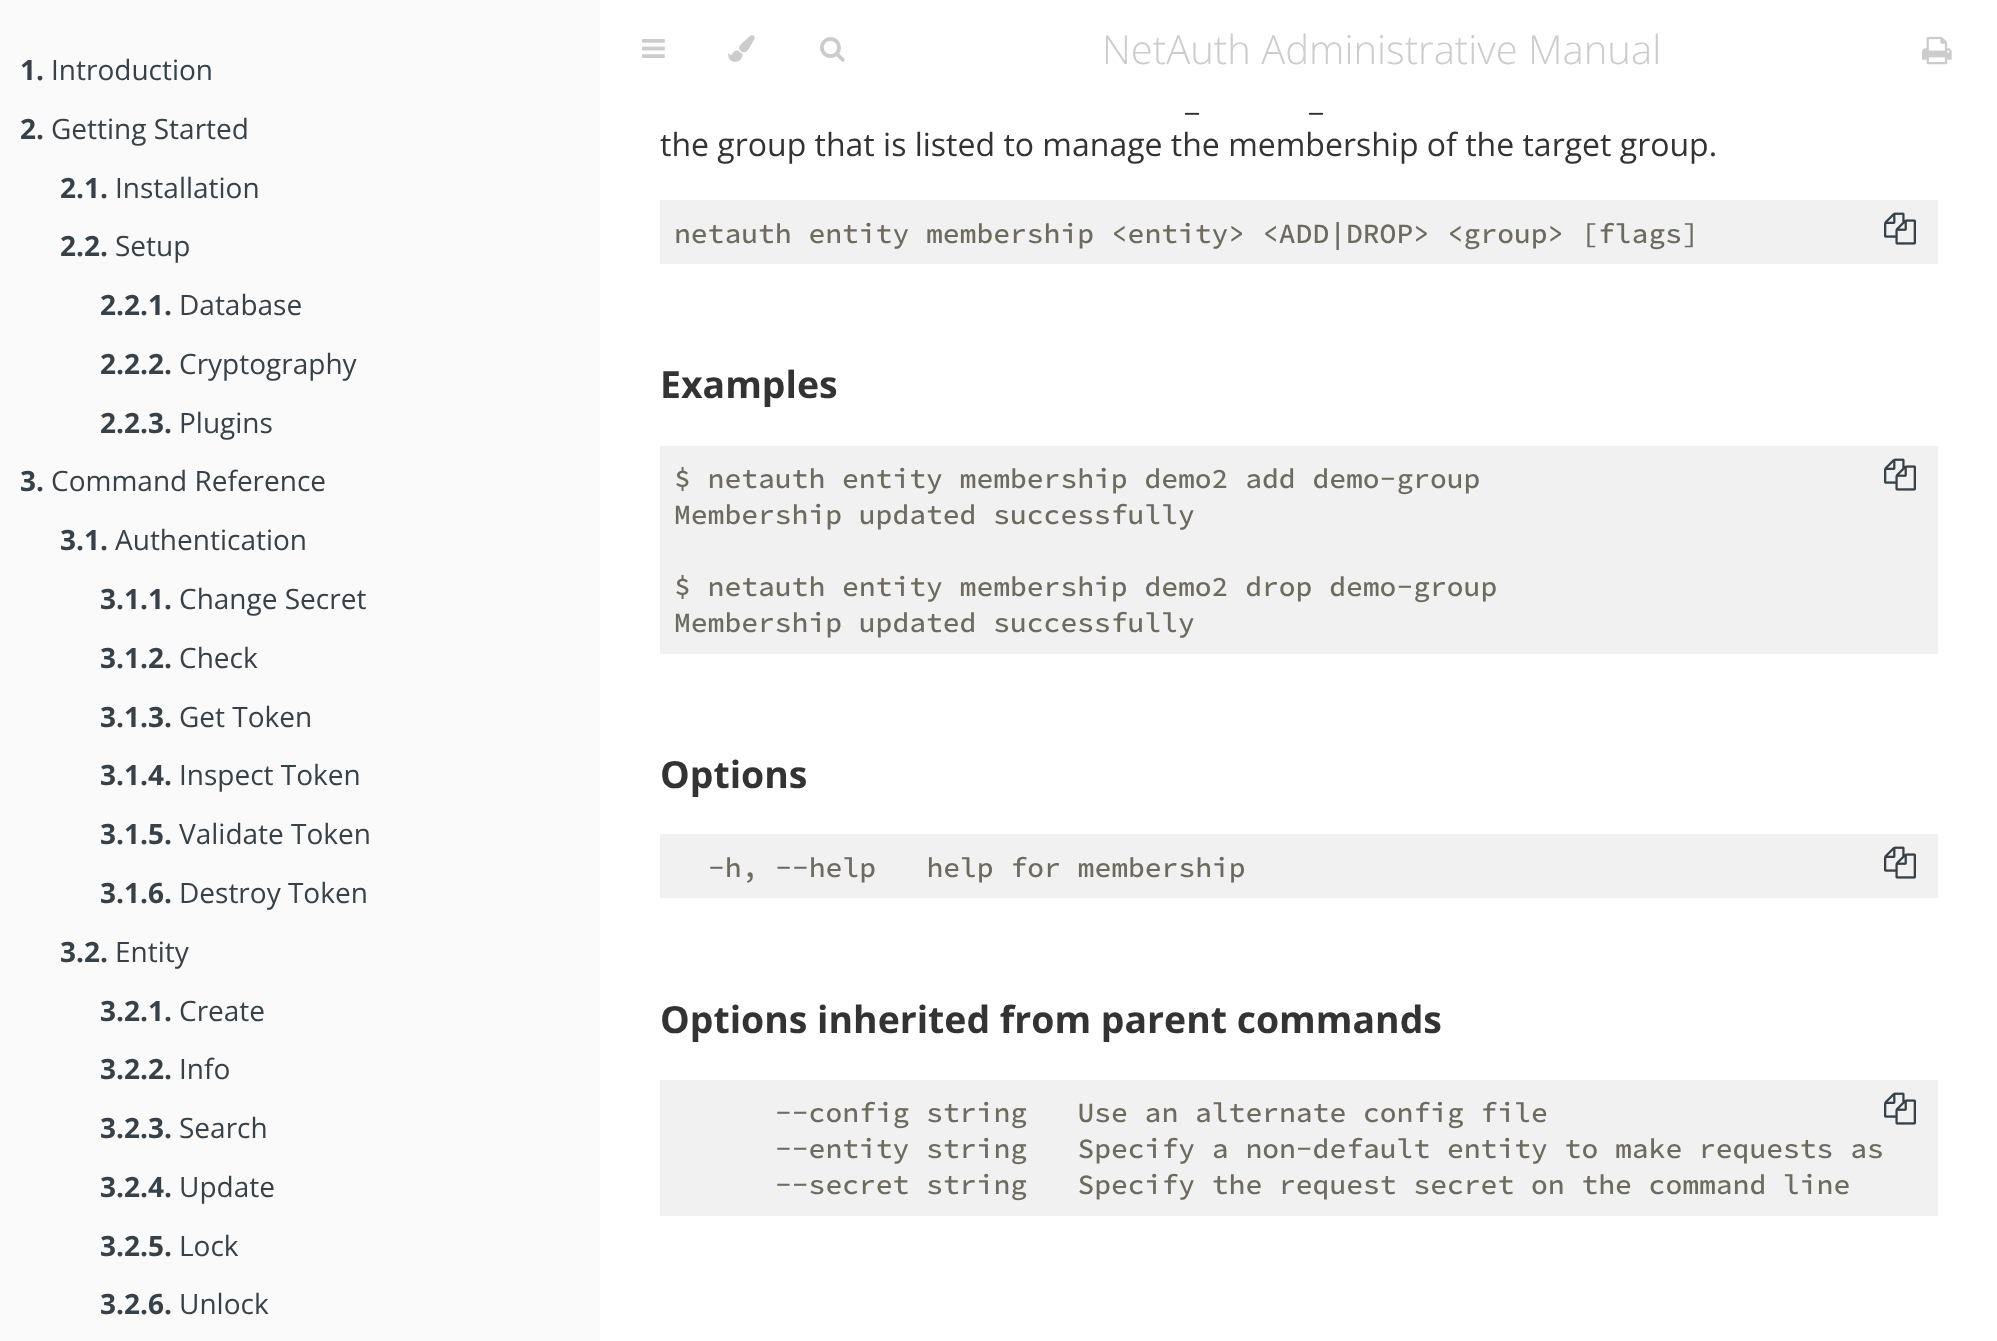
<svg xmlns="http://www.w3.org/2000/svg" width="1997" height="1341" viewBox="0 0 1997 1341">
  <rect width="100%" height="100%" fill="rgb(255,255,255)"/>
  <rect x="0" y="0" width="600" height="1341" fill="rgb(250,250,250)"/>
  <text x="20" y="80" font-family="Open Sans" font-size="28" font-weight="bold" fill="rgb(54,65,73)">1.</text>
  <text x="51" y="80" font-family="Open Sans" font-size="28" fill="rgb(54,65,73)">Introduction</text>
  <text x="20" y="139" font-family="Open Sans" font-size="28" font-weight="bold" fill="rgb(54,65,73)">2.</text>
  <text x="51" y="139" font-family="Open Sans" font-size="28" fill="rgb(54,65,73)">Getting Started</text>
  <text x="60" y="198" font-family="Open Sans" font-size="28" font-weight="bold" fill="rgb(54,65,73)">2.1.</text>
  <text x="115" y="198" font-family="Open Sans" font-size="28" fill="rgb(54,65,73)">Installation</text>
  <text x="60" y="256" font-family="Open Sans" font-size="28" font-weight="bold" fill="rgb(54,65,73)">2.2.</text>
  <text x="115" y="256" font-family="Open Sans" font-size="28" fill="rgb(54,65,73)">Setup</text>
  <text x="100" y="315" font-family="Open Sans" font-size="28" font-weight="bold" fill="rgb(54,65,73)">2.2.1.</text>
  <text x="179" y="315" font-family="Open Sans" font-size="28" fill="rgb(54,65,73)">Database</text>
  <text x="100" y="374" font-family="Open Sans" font-size="28" font-weight="bold" fill="rgb(54,65,73)">2.2.2.</text>
  <text x="179" y="374" font-family="Open Sans" font-size="28" fill="rgb(54,65,73)">Cryptography</text>
  <text x="100" y="433" font-family="Open Sans" font-size="28" font-weight="bold" fill="rgb(54,65,73)">2.2.3.</text>
  <text x="179" y="433" font-family="Open Sans" font-size="28" fill="rgb(54,65,73)">Plugins</text>
  <text x="20" y="491" font-family="Open Sans" font-size="28" font-weight="bold" fill="rgb(54,65,73)">3.</text>
  <text x="51" y="491" font-family="Open Sans" font-size="28" fill="rgb(54,65,73)">Command Reference</text>
  <text x="60" y="550" font-family="Open Sans" font-size="28" font-weight="bold" fill="rgb(54,65,73)">3.1.</text>
  <text x="115" y="550" font-family="Open Sans" font-size="28" fill="rgb(54,65,73)">Authentication</text>
  <text x="100" y="609" font-family="Open Sans" font-size="28" font-weight="bold" fill="rgb(54,65,73)">3.1.1.</text>
  <text x="179" y="609" font-family="Open Sans" font-size="28" fill="rgb(54,65,73)">Change Secret</text>
  <text x="100" y="668" font-family="Open Sans" font-size="28" font-weight="bold" fill="rgb(54,65,73)">3.1.2.</text>
  <text x="179" y="668" font-family="Open Sans" font-size="28" fill="rgb(54,65,73)">Check</text>
  <text x="100" y="727" font-family="Open Sans" font-size="28" font-weight="bold" fill="rgb(54,65,73)">3.1.3.</text>
  <text x="179" y="727" font-family="Open Sans" font-size="28" fill="rgb(54,65,73)">Get Token</text>
  <text x="100" y="785" font-family="Open Sans" font-size="28" font-weight="bold" fill="rgb(54,65,73)">3.1.4.</text>
  <text x="179" y="785" font-family="Open Sans" font-size="28" fill="rgb(54,65,73)">Inspect Token</text>
  <text x="100" y="844" font-family="Open Sans" font-size="28" font-weight="bold" fill="rgb(54,65,73)">3.1.5.</text>
  <text x="179" y="844" font-family="Open Sans" font-size="28" fill="rgb(54,65,73)">Validate Token</text>
  <text x="100" y="903" font-family="Open Sans" font-size="28" font-weight="bold" fill="rgb(54,65,73)">3.1.6.</text>
  <text x="179" y="903" font-family="Open Sans" font-size="28" fill="rgb(54,65,73)">Destroy Token</text>
  <text x="60" y="962" font-family="Open Sans" font-size="28" font-weight="bold" fill="rgb(54,65,73)">3.2.</text>
  <text x="115" y="962" font-family="Open Sans" font-size="28" fill="rgb(54,65,73)">Entity</text>
  <text x="100" y="1021" font-family="Open Sans" font-size="28" font-weight="bold" fill="rgb(54,65,73)">3.2.1.</text>
  <text x="179" y="1021" font-family="Open Sans" font-size="28" fill="rgb(54,65,73)">Create</text>
  <text x="100" y="1079" font-family="Open Sans" font-size="28" font-weight="bold" fill="rgb(54,65,73)">3.2.2.</text>
  <text x="179" y="1079" font-family="Open Sans" font-size="28" fill="rgb(54,65,73)">Info</text>
  <text x="100" y="1138" font-family="Open Sans" font-size="28" font-weight="bold" fill="rgb(54,65,73)">3.2.3.</text>
  <text x="179" y="1138" font-family="Open Sans" font-size="28" fill="rgb(54,65,73)">Search</text>
  <text x="100" y="1197" font-family="Open Sans" font-size="28" font-weight="bold" fill="rgb(54,65,73)">3.2.4.</text>
  <text x="179" y="1197" font-family="Open Sans" font-size="28" fill="rgb(54,65,73)">Update</text>
  <text x="100" y="1256" font-family="Open Sans" font-size="28" font-weight="bold" fill="rgb(54,65,73)">3.2.5.</text>
  <text x="179" y="1256" font-family="Open Sans" font-size="28" fill="rgb(54,65,73)">Lock</text>
  <text x="100" y="1314" font-family="Open Sans" font-size="28" font-weight="bold" fill="rgb(54,65,73)">3.2.6.</text>
  <text x="179" y="1314" font-family="Open Sans" font-size="28" fill="rgb(54,65,73)">Unlock</text>
  <image x="642" y="39" width="23" height="19" href="pic1.png"/>
  <image x="728" y="35" width="27" height="27" href="pic2.png"/>
  <image x="820" y="37" width="25" height="25" href="pic3.png"/>
  <text x="1102" y="64" font-family="Open Sans" font-size="40" font-weight="300" fill="rgb(204,204,204)">NetAuth Administrative Manual</text>
  <image x="1922" y="36" width="30" height="29" href="pic4.png"/>
  <g font-family="Open Sans" font-size="32" fill="rgb(51,51,51)">
    <text x="1185" y="110">_</text>
    <text x="1309" y="110">_</text>
    <text x="660" y="156">the group that is listed to manage the membership of the target group.</text>
  </g>
  <rect x="660" y="200" width="1278" height="64" fill="rgb(241,241,241)"/>
  <text x="674" y="243" font-family="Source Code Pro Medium" font-size="28" font-weight="500" fill="rgb(110,107,94)">netauth entity membership &lt;entity&gt; &lt;ADD|DROP&gt; &lt;group&gt; [flags]</text>
  <image x="1884" y="212" width="32" height="33" href="pic5.png"/>
  <text x="660" y="398" font-family="Open Sans" font-size="37.4" font-weight="bold" fill="rgb(51,51,51)">Examples</text>
  <rect x="660" y="446" width="1278" height="208" fill="rgb(241,241,241)"/>
  <g font-family="Source Code Pro Medium" font-size="28" font-weight="500" fill="rgb(110,107,94)">
    <text>
      <tspan x="674" y="488">$ netauth entity membership demo2 add demo-group</tspan>
      <tspan x="674" y="524">Membership updated successfully</tspan>
    </text>
    <text>
      <tspan x="674" y="596">$ netauth entity membership demo2 drop demo-group</tspan>
      <tspan x="674" y="632">Membership updated successfully</tspan>
    </text>
  </g>
  <image x="1884" y="458" width="32" height="33" href="pic5.png"/>
  <text x="660" y="788" font-family="Open Sans" font-size="37.4" font-weight="bold" fill="rgb(51,51,51)">Options</text>
  <rect x="660" y="834" width="1278" height="64" fill="rgb(241,241,241)"/>
  <text x="708" y="877" font-family="Source Code Pro Medium" font-size="28" font-weight="500" fill="rgb(110,107,94)" xml:space="preserve">-h, --help   help for membership</text>
  <image x="1884" y="846" width="32" height="33" href="pic5.png"/>
  <text x="660" y="1033" font-family="Open Sans" font-size="37.4" font-weight="bold" fill="rgb(51,51,51)">Options inherited from parent commands</text>
  <rect x="660" y="1080" width="1278" height="136" fill="rgb(241,241,241)"/>
  <g font-family="Source Code Pro Medium" font-size="28" font-weight="500" fill="rgb(110,107,94)">
    <text xml:space="preserve"><tspan x="775" y="1122">--config string   Use an alternate config file</tspan><tspan x="775" y="1158">--entity string   Specify a non-default entity to make requests as</tspan><tspan x="775" y="1194">--secret string   Specify the request secret on the command line</tspan></text>
  </g>
  <image x="1884" y="1092" width="32" height="33" href="pic5.png"/>
</svg>
